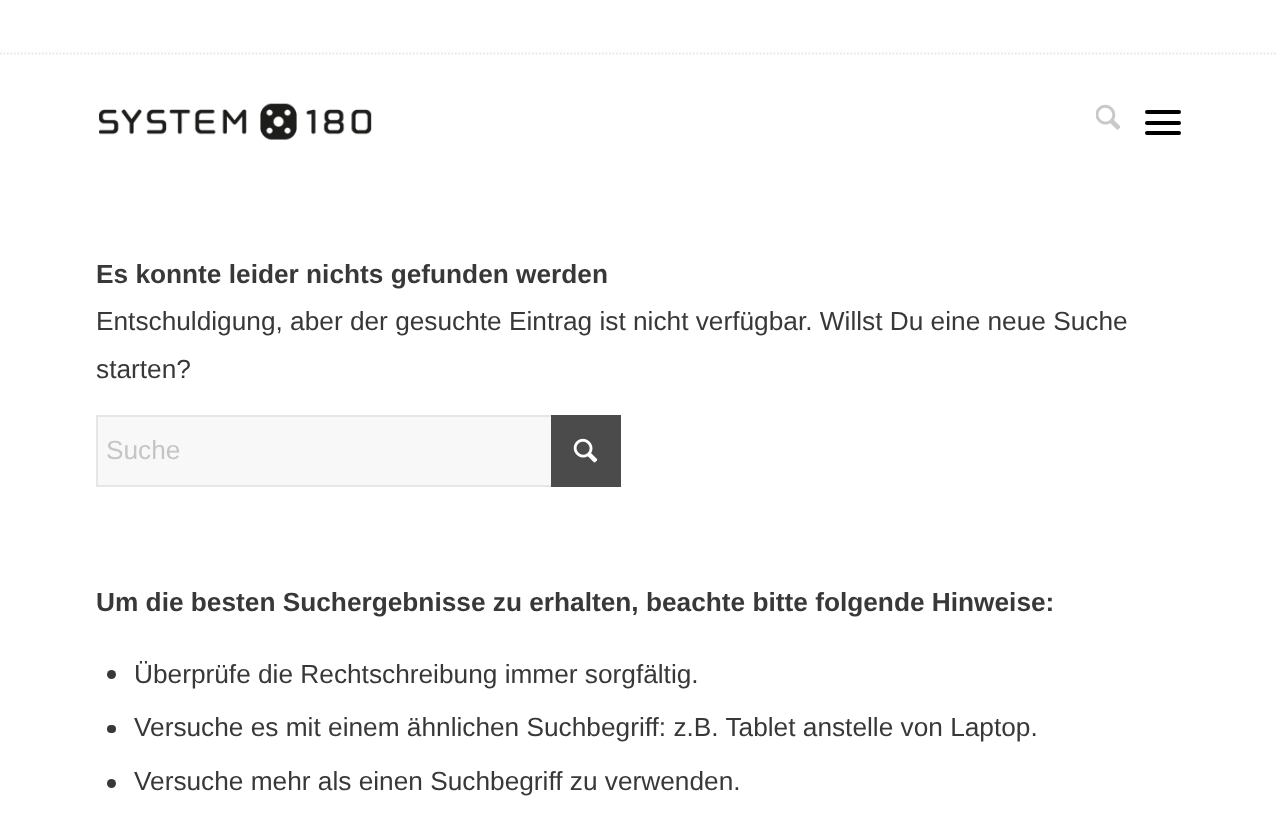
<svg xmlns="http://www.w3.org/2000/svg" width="1276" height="837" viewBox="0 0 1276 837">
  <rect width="100%" height="100%" fill="rgb(255,255,255)"/>
  <path d="M0 53.5H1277.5" fill="none" stroke="rgb(232,232,232)" stroke-width="1.8" stroke-dasharray="1.75 1.75"/>
  <image x="99" y="103" width="273" height="37" href="pic1.png"/>
  <image x="1096" y="104" width="24" height="26" href="pic2.png"/>
  <rect x="1145" y="121" width="36" height="4" rx="2" fill="rgb(0,0,0)"/>
  <rect x="1145" y="110" width="36" height="4" rx="2" fill="rgb(0,0,0)"/>
  <rect x="1145" y="131" width="36" height="4" rx="2" fill="rgb(0,0,0)"/>
  <text x="96" y="283" font-family="Liberation Sans" font-size="26.25" font-weight="bold" fill="rgb(56,56,56)">Es konnte leider nichts gefunden werden</text>
  <g font-family="Liberation Sans" font-size="26.25" fill="rgb(56,56,56)">
    <text>
      <tspan x="96" y="330">Entschuldigung, aber der gesuchte Eintrag ist nicht verfügbar. Willst Du eine neue Suche</tspan>
      <tspan x="96" y="378">starten?</tspan>
    </text>
  </g>
  <rect x="98" y="417" width="453" height="68" fill="rgb(248,248,248)"/>
  <rect x="97" y="416" width="523" height="70" fill="none" stroke="rgb(230,230,230)" stroke-width="2"/>
  <rect x="551" y="415" width="70" height="72" fill="rgb(75,75,75)"/>
  <text x="106" y="459" font-family="Liberation Sans" font-size="26.25" fill="rgb(197,197,197)">Suche</text>
  <image x="573" y="438" width="25" height="25" href="pic3.png"/>
  <text x="96" y="611" font-family="Liberation Sans" font-size="26.25" font-weight="bold" fill="rgb(56,56,56)">Um die besten Suchergebnisse zu erhalten, beachte bitte folgende Hinweise:</text>
  <circle cx="111.5" cy="674.5" r="4.5" fill="rgb(56,56,56)"/>
  <text x="134" y="683" font-family="Liberation Sans" font-size="26.25" fill="rgb(56,56,56)">Überprüfe die Rechtschreibung immer sorgfältig.</text>
  <rect x="107" y="725" width="9" height="8" rx="4" fill="rgb(56,56,56)"/>
  <text x="134" y="736" font-family="Liberation Sans" font-size="26.25" fill="rgb(56,56,56)">Versuche es mit einem ähnlichen Suchbegriff: z.B. Tablet anstelle von Laptop.</text>
  <circle cx="111.5" cy="783.5" r="4.5" fill="rgb(56,56,56)"/>
  <text x="134" y="790" font-family="Liberation Sans" font-size="26.25" fill="rgb(56,56,56)">Versuche mehr als einen Suchbegriff zu verwenden.</text>
</svg>
